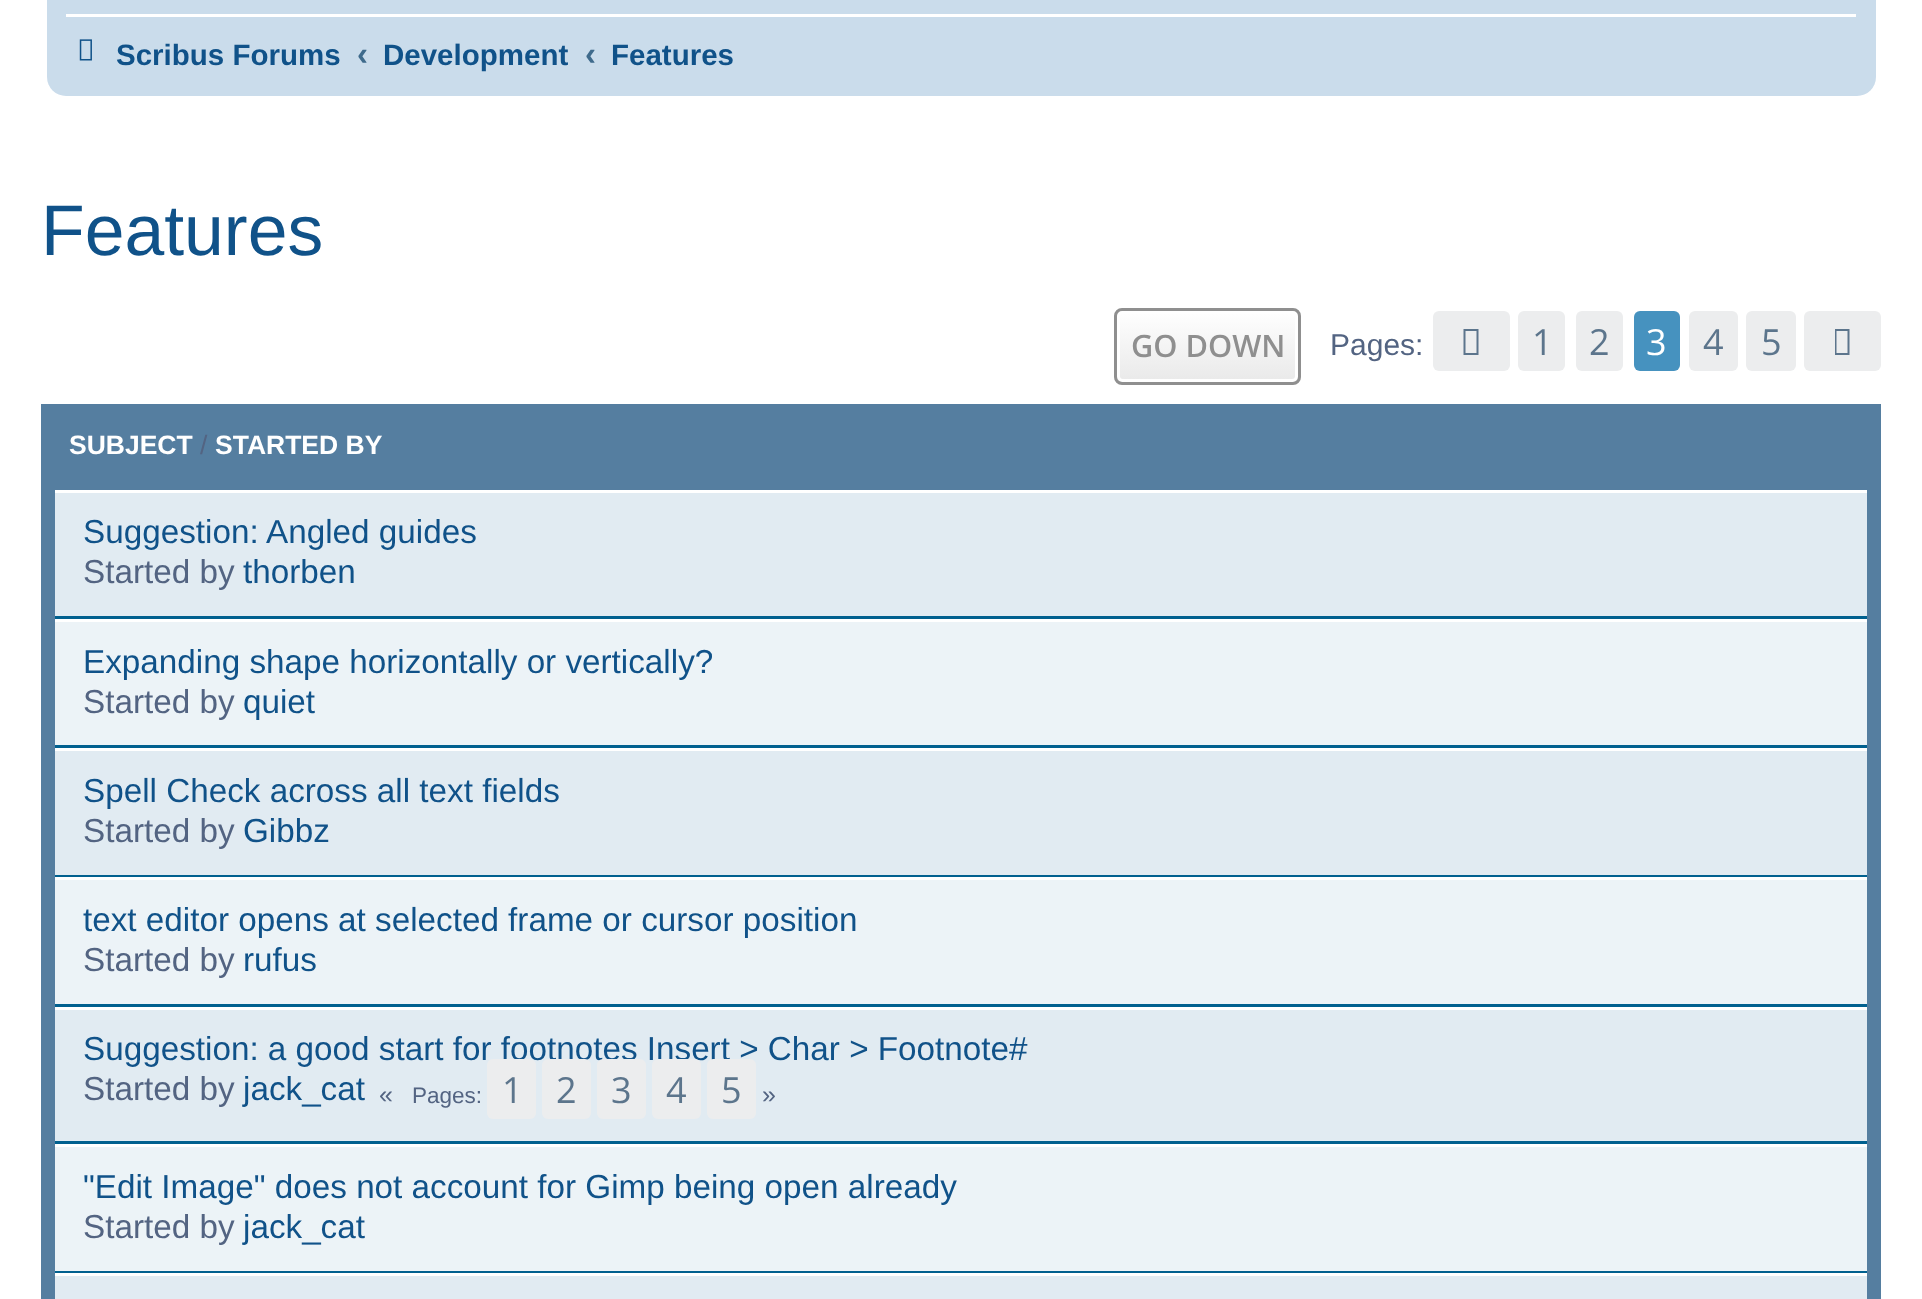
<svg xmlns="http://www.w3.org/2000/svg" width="1922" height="1299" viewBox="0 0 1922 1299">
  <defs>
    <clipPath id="clip1"><rect x="1114" y="308" width="187" height="77" rx="8"/></clipPath>
    <linearGradient id="g1" gradientUnits="userSpaceOnUse" x1="1207" y1="311" x2="1207" y2="382"><stop offset="0" stop-color="rgb(255,255,255)"/><stop offset="1" stop-color="rgb(233,233,233)"/></linearGradient>
  </defs>
  <rect width="100%" height="100%" fill="rgb(255,255,255)"/>
  <rect x="47" y="-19" width="1829" height="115" rx="19" fill="rgb(202,220,235)"/>
  <rect x="66" y="14" width="1790" height="3" fill="rgb(255,255,255)"/>
  <image x="79" y="39" width="13" height="22" href="pic1.png"/>
  <text x="116" y="65" font-family="Liberation Sans" font-size="29.5" font-weight="bold" fill="rgb(16,82,137)">Scribus Forums</text>
  <text x="357" y="65" font-family="Liberation Sans" font-size="33" font-weight="bold" fill="rgb(63,107,140)">‹</text>
  <text x="383" y="65" font-family="Liberation Sans" font-size="29.5" font-weight="bold" fill="rgb(16,82,137)">Development</text>
  <text x="585" y="65" font-family="Liberation Sans" font-size="33" font-weight="bold" fill="rgb(63,107,140)">‹</text>
  <text x="611" y="65" font-family="Liberation Sans" font-size="29.5" font-weight="bold" fill="rgb(16,82,137)">Features</text>
  <text x="41" y="255" font-family="Liberation Sans" font-size="71.5" fill="rgb(16,82,137)">Features</text>
  <g clip-path="url(#clip1)">
    <rect x="1114" y="311" width="187" height="71" fill="url(#g1)"/>
  </g>
  <rect x="1118.5" y="312.5" width="178" height="68" rx="4.5" fill="none" stroke="rgb(255,255,255)" stroke-width="3"/>
  <rect x="1115.5" y="309.5" width="184" height="74" rx="6.5" fill="none" stroke="rgb(143,143,143)" stroke-width="3"/>
  <text x="1131" y="357" font-family="Open Sans" font-size="30.75" font-weight="600" fill="rgb(143,143,143)">GO DOWN</text>
  <text x="1330" y="355" font-family="Liberation Sans" font-size="30" fill="rgb(83,100,130)">Pages:</text>
  <rect x="1433" y="311" width="77" height="60" rx="6" fill="rgb(236,237,238)"/>
  <path d="M1463.5 355V329H1478.5V355ZM1465.5 353H1476.5V331H1465.5Z" fill="rgb(92,117,140)"/>
  <rect x="1518" y="311" width="47" height="60" rx="6" fill="rgb(236,237,238)"/>
  <text x="1532" y="355" font-family="Open Sans" font-size="36" fill="rgb(92,117,140)">1</text>
  <rect x="1576" y="311" width="47" height="60" rx="6" fill="rgb(236,237,238)"/>
  <text x="1589" y="355" font-family="Open Sans" font-size="36" fill="rgb(92,117,140)">2</text>
  <rect x="1634" y="311" width="46" height="60" rx="6" fill="rgb(70,146,191)"/>
  <text x="1646" y="355" font-family="Open Sans" font-size="36" fill="rgb(255,255,255)">3</text>
  <rect x="1689" y="311" width="49" height="60" rx="6" fill="rgb(236,237,238)"/>
  <text x="1703" y="355" font-family="Open Sans" font-size="36" fill="rgb(92,117,140)">4</text>
  <rect x="1746" y="311" width="50" height="60" rx="6" fill="rgb(236,237,238)"/>
  <text x="1761" y="355" font-family="Open Sans" font-size="36" fill="rgb(92,117,140)">5</text>
  <rect x="1804" y="311" width="77" height="60" rx="6" fill="rgb(236,237,238)"/>
  <path d="M1835 355V329H1849.5V355ZM1836.5 353H1847.5V331H1836.5Z" fill="rgb(92,117,140)"/>
  <rect x="41" y="404" width="1840" height="86" fill="rgb(85,126,160)"/>
  <text x="69" y="454" font-family="Liberation Sans" font-size="26.5" font-weight="bold" fill="rgb(255,255,255)">SUBJECT</text>
  <text x="200" y="454" font-family="Liberation Sans" font-size="26.5" fill="rgb(83,100,130)">/</text>
  <text x="215" y="454" font-family="Liberation Sans" font-size="26.5" font-weight="bold" fill="rgb(255,255,255)">STARTED BY</text>
  <path d="M41 490H1881V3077C1881 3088 1872 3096 1862 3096H60C50 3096 41 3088 41 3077ZM55 490H1867V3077C1867 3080 1865 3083 1862 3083H60C57 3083 55 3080 55 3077Z" fill="rgb(85,126,160)" fill-rule="evenodd"/>
  <rect x="55" y="493" width="1812" height="123" fill="rgb(225,235,242)"/>
  <rect x="55" y="616" width="1812" height="3" fill="rgb(0,96,143)"/>
  <text x="83" y="543" font-family="Liberation Sans" font-size="33.25" fill="rgb(16,82,137)">Suggestion: Angled guides</text>
  <text x="83" y="583" font-family="Liberation Sans" font-size="33.25" fill="rgb(83,100,130)">Started by</text>
  <text x="243" y="583" font-family="Liberation Sans" font-size="33.25" fill="rgb(16,82,137)">thorben</text>
  <rect x="55" y="622" width="1812" height="123" fill="rgb(236,243,247)"/>
  <rect x="55" y="745" width="1812" height="3" fill="rgb(0,96,143)"/>
  <text x="83" y="673" font-family="Liberation Sans" font-size="33.25" fill="rgb(16,82,137)">Expanding shape horizontally or vertically?</text>
  <text x="83" y="713" font-family="Liberation Sans" font-size="33.25" fill="rgb(83,100,130)">Started by</text>
  <text x="243" y="713" font-family="Liberation Sans" font-size="33.25" fill="rgb(16,82,137)">quiet</text>
  <rect x="55" y="751" width="1812" height="124" fill="rgb(225,235,242)"/>
  <rect x="55" y="875" width="1812" height="2" fill="rgb(0,96,143)"/>
  <text x="83" y="802" font-family="Liberation Sans" font-size="33.25" fill="rgb(16,82,137)">Spell Check across all text fields</text>
  <text x="83" y="842" font-family="Liberation Sans" font-size="33.25" fill="rgb(83,100,130)">Started by</text>
  <text x="243" y="842" font-family="Liberation Sans" font-size="33.25" fill="rgb(16,82,137)">Gibbz</text>
  <rect x="55" y="880" width="1812" height="124" fill="rgb(236,243,247)"/>
  <rect x="55" y="1004" width="1812" height="3" fill="rgb(0,96,143)"/>
  <text x="83" y="931" font-family="Liberation Sans" font-size="33.25" fill="rgb(16,82,137)">text editor opens at selected frame or cursor position</text>
  <text x="83" y="971" font-family="Liberation Sans" font-size="33.25" fill="rgb(83,100,130)">Started by</text>
  <text x="243" y="971" font-family="Liberation Sans" font-size="33.25" fill="rgb(16,82,137)">rufus</text>
  <rect x="55" y="1010" width="1812" height="131" fill="rgb(225,235,242)"/>
  <rect x="55" y="1141" width="1812" height="3" fill="rgb(0,96,143)"/>
  <text x="83" y="1060" font-family="Liberation Sans" font-size="33.25" fill="rgb(16,82,137)">Suggestion: a good start for footnotes Insert &gt; Char &gt; Footnote#</text>
  <text x="83" y="1100" font-family="Liberation Sans" font-size="33.25" fill="rgb(83,100,130)">Started by</text>
  <text x="243" y="1100" font-family="Liberation Sans" font-size="33.25" fill="rgb(16,82,137)">jack_cat</text>
  <text x="379" y="1103" font-family="Liberation Sans" font-size="25" fill="rgb(83,100,130)">«</text>
  <text x="412" y="1103" font-family="Liberation Sans" font-size="22.5" fill="rgb(83,100,130)">Pages:</text>
  <rect x="487" y="1059" width="49" height="60" rx="6" fill="rgb(236,237,238)"/>
  <text x="502" y="1103" font-family="Open Sans" font-size="36" fill="rgb(92,117,140)">1</text>
  <rect x="542" y="1059" width="49" height="60" rx="6" fill="rgb(236,237,238)"/>
  <text x="556" y="1103" font-family="Open Sans" font-size="36" fill="rgb(92,117,140)">2</text>
  <rect x="597" y="1059" width="49" height="60" rx="6" fill="rgb(236,237,238)"/>
  <text x="611" y="1103" font-family="Open Sans" font-size="36" fill="rgb(92,117,140)">3</text>
  <rect x="652" y="1059" width="49" height="60" rx="6" fill="rgb(236,237,238)"/>
  <text x="666" y="1103" font-family="Open Sans" font-size="36" fill="rgb(92,117,140)">4</text>
  <rect x="707" y="1059" width="49" height="60" rx="6" fill="rgb(236,237,238)"/>
  <text x="721" y="1103" font-family="Open Sans" font-size="36" fill="rgb(92,117,140)">5</text>
  <text x="762" y="1103" font-family="Liberation Sans" font-size="25" fill="rgb(83,100,130)">»</text>
  <rect x="55" y="1147" width="1812" height="124" fill="rgb(236,243,247)"/>
  <rect x="55" y="1271" width="1812" height="2" fill="rgb(0,96,143)"/>
  <text x="83" y="1198" font-family="Liberation Sans" font-size="33.25" fill="rgb(16,82,137)">"Edit Image" does not account for Gimp being open already</text>
  <text x="83" y="1238" font-family="Liberation Sans" font-size="33.25" fill="rgb(83,100,130)">Started by</text>
  <text x="243" y="1238" font-family="Liberation Sans" font-size="33.25" fill="rgb(16,82,137)">jack_cat</text>
  <rect x="55" y="1276" width="1812" height="23" fill="rgb(225,235,242)"/>
</svg>
